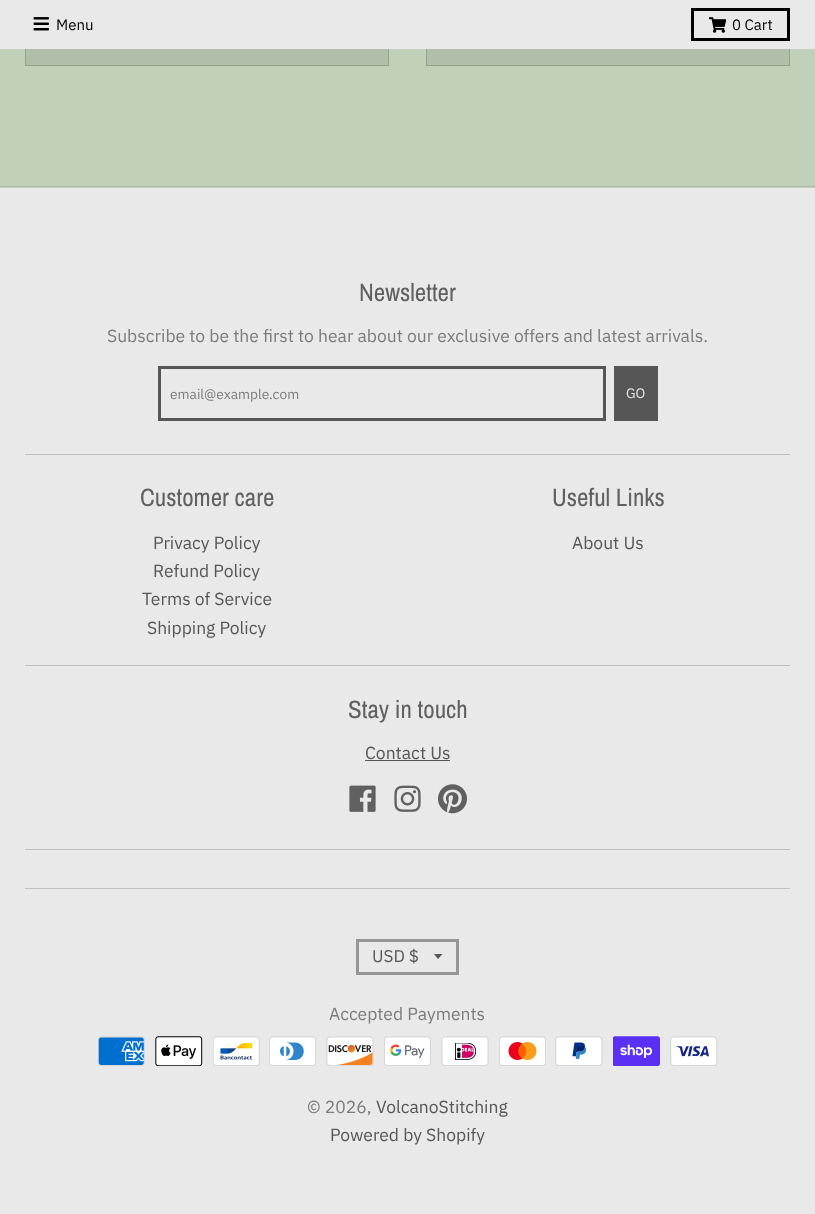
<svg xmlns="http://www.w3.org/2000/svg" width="815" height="1214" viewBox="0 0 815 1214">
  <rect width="100%" height="100%" fill="rgb(192,208,185)"/>
  <rect x="0" y="186" width="815" height="1" fill="rgb(172,187,166)"/>
  <rect x="26" y="49" width="362" height="16" fill="rgb(177,191,170)"/>
  <rect x="25.5" y="-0.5" width="363" height="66" fill="none" stroke="rgb(149,161,143)"/>
  <rect x="427" y="49" width="362" height="16" fill="rgb(177,191,170)"/>
  <rect x="426.5" y="-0.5" width="363" height="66" fill="none" stroke="rgb(149,161,143)"/>
  <rect x="0" y="0" width="815" height="49" fill="rgb(233,233,233)"/>
  <image x="33" y="17" width="16" height="14" href="pic1.png"/>
  <text x="56" y="30" font-family="IBM Plex Sans" font-size="15" fill="rgb(0,0,0)">Menu</text>
  <rect x="692.5" y="9.5" width="96" height="30" fill="none" stroke="rgb(0,0,0)" stroke-width="3"/>
  <image x="709" y="17" width="17" height="16" href="pic2.png"/>
  <text x="732" y="30" font-family="IBM Plex Sans" font-size="15" fill="rgb(0,0,0)">0 Cart</text>
  <rect x="0" y="188" width="815" height="1026" fill="rgb(233,233,233)"/>
  <text x="359" y="301" font-family="Archivo Narrow" font-size="25" fill="rgb(96,96,96)">Newsletter</text>
  <text x="107" y="342" font-family="IBM Plex Sans" font-size="17.5" fill="rgb(123,123,123)">Subscribe to be the first to hear about our exclusive offers and latest arrivals.</text>
  <rect x="25" y="454" width="765" height="1" fill="rgb(191,191,191)"/>
  <rect x="159.5" y="367.5" width="445" height="52" fill="none" stroke="rgb(86,86,86)" stroke-width="3"/>
  <text x="170" y="399" font-family="IBM Plex Sans" font-size="13.75" fill="rgb(123,123,123)">email@example.com</text>
  <rect x="614" y="366" width="44" height="55" fill="rgb(86,86,86)"/>
  <text x="626" y="398" font-family="IBM Plex Sans" font-size="13.75" fill="rgb(233,233,233)">GO</text>
  <text x="140" y="506" font-family="Archivo Narrow" font-size="25" fill="rgb(96,96,96)">Customer care</text>
  <g font-family="IBM Plex Sans" font-size="17.5" fill="rgb(86,86,86)">
    <text>
      <tspan x="153" y="549">Privacy Policy</tspan>
      <tspan x="153" y="577">Refund Policy</tspan>
    </text>
    <text x="142" y="605">Terms of Service</text>
    <text x="147" y="634">Shipping Policy</text>
  </g>
  <text x="552" y="506" font-family="Archivo Narrow" font-size="25" fill="rgb(96,96,96)">Useful Links</text>
  <text x="572" y="549" font-family="IBM Plex Sans" font-size="17.5" fill="rgb(86,86,86)">About Us</text>
  <rect x="25" y="665" width="765" height="1" fill="rgb(191,191,191)"/>
  <text x="348" y="718" font-family="Archivo Narrow" font-size="25" fill="rgb(96,96,96)">Stay in touch</text>
  <text x="365" y="759" font-family="IBM Plex Sans" font-size="17.5" fill="rgb(86,86,86)">Contact Us</text>
  <rect x="365" y="760" width="85" height="1" fill="rgb(86,86,86)"/>
  <image x="349" y="785" width="27" height="27" href="pic3.png"/>
  <image x="394" y="785" width="27" height="27" href="pic4.png"/>
  <image x="438" y="784" width="29" height="30" href="pic5.png"/>
  <rect x="25" y="849" width="765" height="1" fill="rgb(191,191,191)"/>
  <rect x="25" y="888" width="765" height="1" fill="rgb(191,191,191)"/>
  <path d="M434 954L438 959L442.5 954Z" fill="rgb(86,86,86)"/>
  <rect x="357.5" y="940.5" width="100" height="33" fill="none" stroke="rgb(150,150,150)" stroke-width="3"/>
  <text x="372" y="962" font-family="IBM Plex Sans" font-size="17" fill="rgb(86,86,86)">USD $</text>
  <text x="329" y="1020" font-family="IBM Plex Sans" font-size="17.5" fill="rgb(123,123,123)">Accepted Payments</text>
  <image x="98" y="1036" width="47" height="30" href="pic6.png"/>
  <image x="155" y="1036" width="48" height="30" href="pic7.png"/>
  <image x="213" y="1036" width="47" height="30" href="pic8.png"/>
  <image x="269" y="1036" width="47" height="30" href="pic9.png"/>
  <image x="326" y="1036" width="48" height="30" href="pic10.png"/>
  <image x="384" y="1036" width="47" height="30" href="pic11.png"/>
  <image x="441" y="1036" width="48" height="30" href="pic12.png"/>
  <image x="499" y="1036" width="47" height="30" href="pic13.png"/>
  <image x="555" y="1036" width="48" height="30" href="pic14.png"/>
  <image x="613" y="1036" width="47" height="30" href="pic15.png"/>
  <image x="670" y="1036" width="48" height="30" href="pic16.png"/>
  <text x="307" y="1113" font-family="IBM Plex Sans" font-size="17.5" fill="rgb(123,123,123)">© 2026,</text>
  <g font-family="IBM Plex Sans" font-size="17.5" fill="rgb(86,86,86)">
    <text x="376" y="1113">VolcanoStitching</text>
    <text x="330" y="1141">Powered by Shopify</text>
  </g>
</svg>
